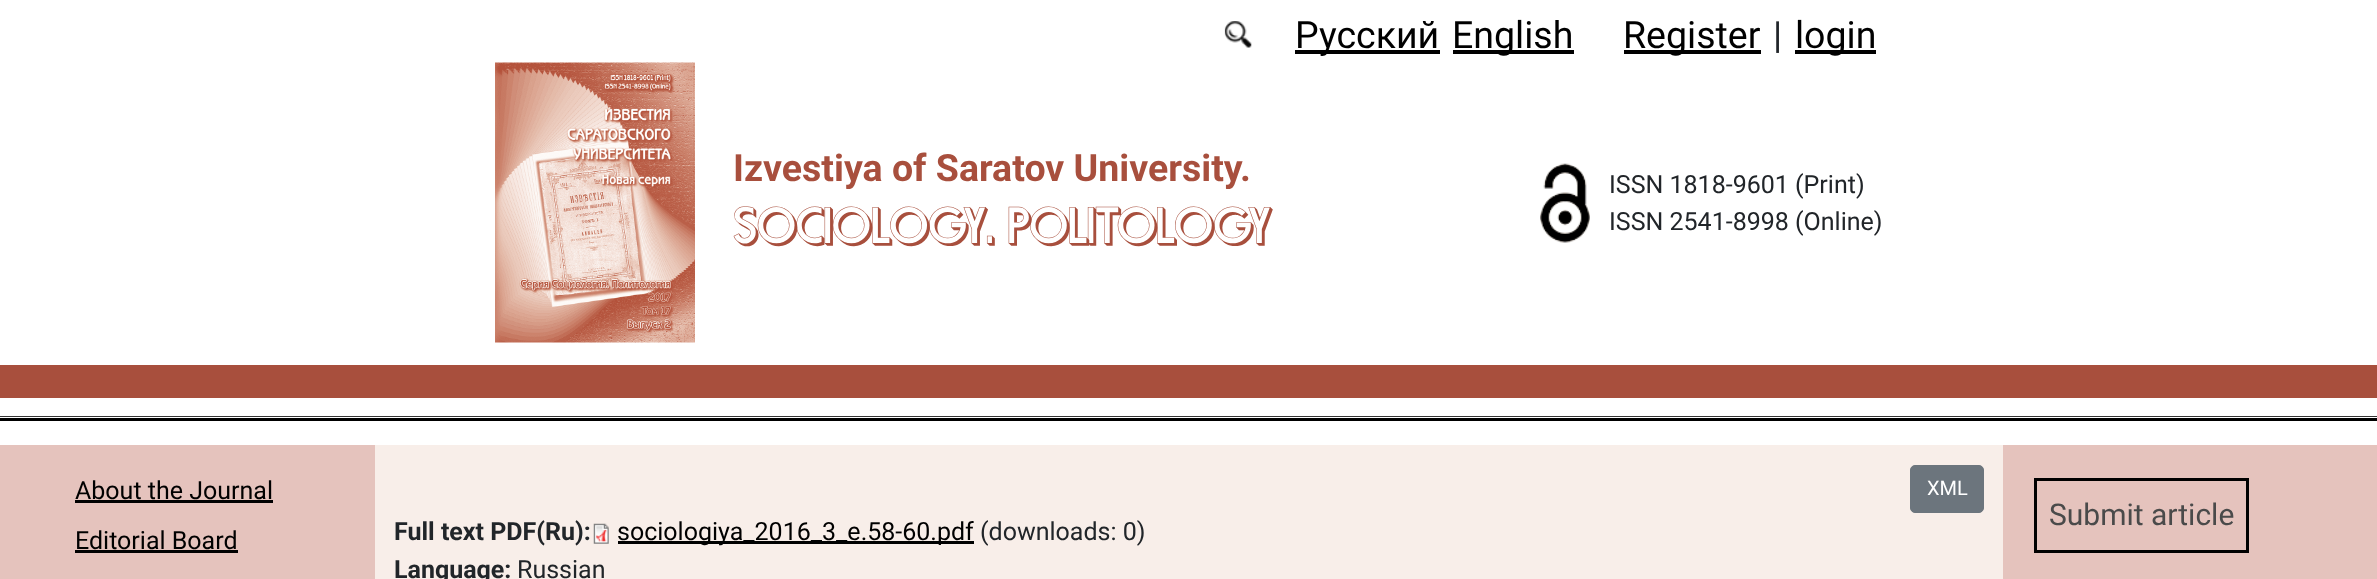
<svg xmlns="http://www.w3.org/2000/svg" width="2377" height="579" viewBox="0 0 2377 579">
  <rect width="100%" height="100%" fill="rgb(255,255,255)"/>
  <image x="1224" y="21" width="28" height="27" href="pic1.png"/>
  <rect x="1295" y="50" width="145" height="4" fill="rgb(0,0,0)"/>
  <text x="1295" y="48" font-family="Roboto" font-size="37.5" fill="rgb(0,0,0)">Русский</text>
  <rect x="1453" y="50" width="121" height="4" fill="rgb(0,0,0)"/>
  <text x="1452" y="48" font-family="Roboto" font-size="37.5" fill="rgb(0,0,0)">English</text>
  <rect x="1624" y="50" width="137" height="4" fill="rgb(0,0,0)"/>
  <text x="1623" y="48" font-family="Roboto" font-size="37.5" fill="rgb(0,0,0)">Register</text>
  <text x="1773" y="48" font-family="Roboto" font-size="37.5" fill="rgb(33,37,41)">|</text>
  <rect x="1795" y="50" width="81" height="4" fill="rgb(0,0,0)"/>
  <text x="1795" y="48" font-family="Roboto" font-size="37.5" fill="rgb(0,0,0)">login</text>
  <image x="495" y="62" width="200" height="281" href="pic2.png"/>
  <text x="733" y="181" font-family="Roboto" font-size="37.5" font-weight="bold" fill="rgb(168,79,61)">Izvestiya of Saratov University.</text>
  <text x="733" y="243" font-family="'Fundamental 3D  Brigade'" font-size="50" fill="rgb(168,79,61)">SOCIOLOGY. POLITOLOGY</text>
  <image x="1540" y="163" width="50" height="80" href="pic3.png"/>
  <g font-family="Roboto" font-size="25" fill="rgb(33,37,41)">
    <text>
      <tspan x="1609" y="193">ISSN 1818-9601 (Print)</tspan>
      <tspan x="1609" y="230">ISSN 2541-8998 (Online)</tspan>
    </text>
  </g>
  <rect x="0" y="365" width="2377" height="33" fill="rgb(168,79,61)"/>
  <rect x="0" y="416" width="2377" height="1" fill="rgb(51,51,51)"/>
  <rect x="0" y="418" width="2377" height="3" fill="rgb(0,0,0)"/>
  <rect x="0" y="445" width="375" height="134" fill="rgb(229,195,189)"/>
  <text x="75" y="499" font-family="Roboto" font-size="25" fill="rgb(0,0,0)">About the Journal</text>
  <rect x="75" y="500" width="198" height="3" fill="rgb(0,0,0)"/>
  <text x="75" y="549" font-family="Roboto" font-size="25" fill="rgb(0,0,0)">Editorial Board</text>
  <rect x="75" y="550" width="163" height="3" fill="rgb(0,0,0)"/>
  <rect x="375" y="445" width="1628" height="134" fill="rgb(248,238,233)"/>
  <rect x="1910.5" y="465.5" width="73" height="47" rx="4.5" fill="rgb(108,117,125)" stroke="rgb(108,117,125)"/>
  <text x="1927" y="495" font-family="Roboto" font-size="20" fill="rgb(255,255,255)">XML</text>
  <text x="394" y="540" font-family="Roboto" font-size="25" font-weight="bold" fill="rgb(33,37,41)">Full text PDF(Ru):</text>
  <image x="593" y="523" width="16" height="21" href="pic4.png"/>
  <rect x="618" y="541" width="356" height="3" fill="rgb(0,0,0)"/>
  <text x="617" y="540" font-family="Roboto" font-size="25" fill="rgb(0,0,0)">sociologiya_2016_3_e.58-60.pdf</text>
  <text x="980" y="540" font-family="Roboto" font-size="25" fill="rgb(33,37,41)">(downloads: 0)</text>
  <text x="394" y="578" font-family="Roboto" font-size="25" font-weight="bold" fill="rgb(33,37,41)">Language:</text>
  <text x="517" y="578" font-family="Roboto" font-size="25" fill="rgb(33,37,41)">Russian</text>
  <rect x="2003" y="445" width="374" height="134" fill="rgb(229,195,189)"/>
  <rect x="2035.5" y="479.5" width="212" height="72" fill="none" stroke="rgb(0,0,0)" stroke-width="3"/>
  <text x="2049" y="525" font-family="Roboto" font-size="30" fill="rgb(74,74,74)">Submit article</text>
</svg>
